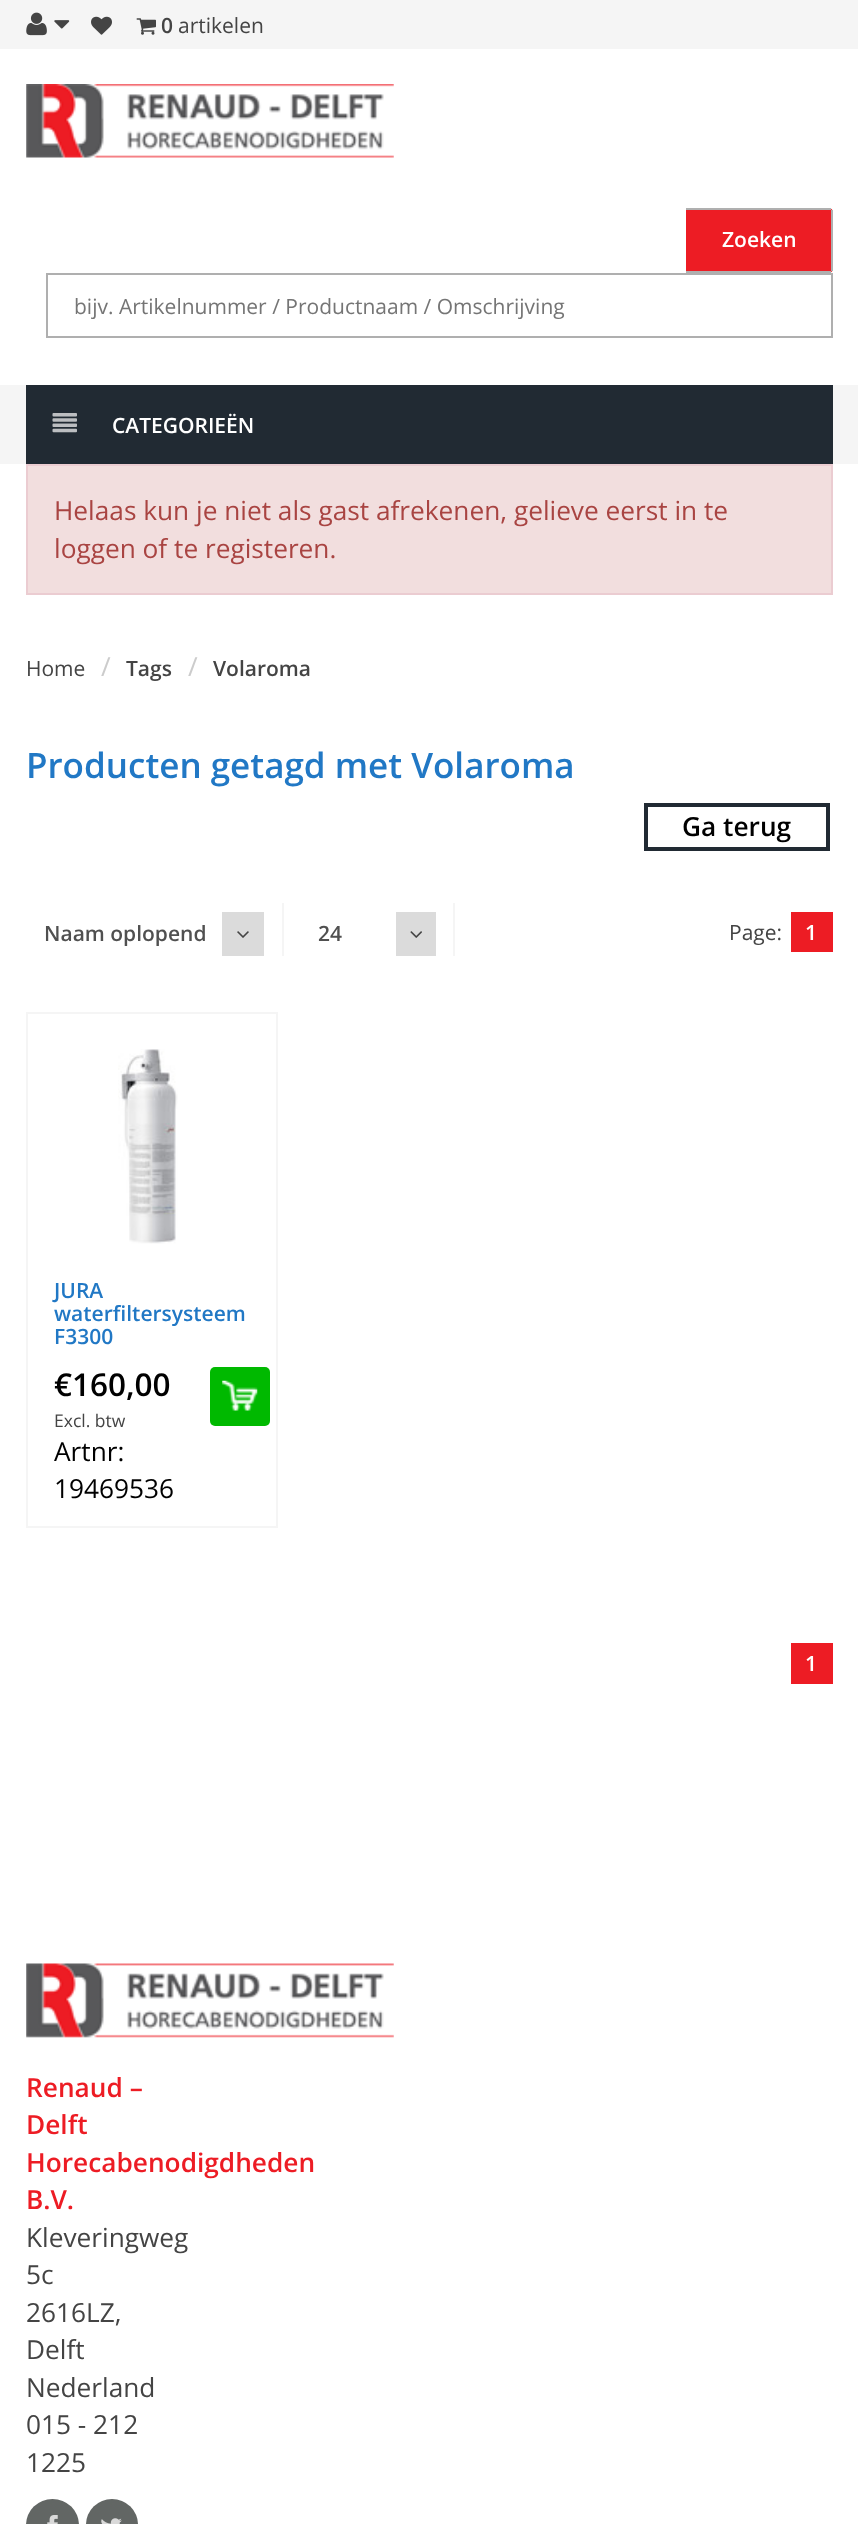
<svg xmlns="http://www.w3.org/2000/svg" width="858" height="2524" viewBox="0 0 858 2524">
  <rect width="100%" height="100%" fill="rgb(255,255,255)"/>
  <rect x="0" y="0" width="858" height="49" fill="rgb(245,245,245)"/>
  <image x="26" y="12" width="21" height="24" href="pic1.png"/>
  <image x="54" y="20" width="16" height="9" href="pic2.png"/>
  <image x="91" y="16" width="21" height="19" href="pic3.png"/>
  <image x="136" y="18" width="20" height="17" href="pic4.png"/>
  <text x="161" y="33" font-family="Open Sans" font-size="21" font-weight="600" fill="rgb(68,68,68)">0</text>
  <text x="178" y="33" font-family="Open Sans" font-size="21" fill="rgb(68,68,68)">artikelen</text>
  <image x="26" y="84" width="368" height="74" href="pic5.png"/>
  <path d="M686 208H829C831 208 833 210 833 212V269C833 271 831 273 829 273H686Z" fill="rgb(237,28,36)"/>
  <rect x="686" y="208" width="145" height="2" fill="rgb(175,175,175)"/>
  <rect x="831" y="210" width="2" height="61" fill="rgb(175,175,175)"/>
  <rect x="686" y="271" width="145" height="2" fill="rgb(175,175,175)"/>
  <text x="722" y="247" font-family="Open Sans" font-size="21" font-weight="600" fill="rgb(255,255,255)">Zoeken</text>
  <rect x="47" y="274" width="785" height="63" fill="none" stroke="rgb(175,175,175)" stroke-width="2"/>
  <text x="74" y="314" font-family="Open Sans" font-size="21" fill="rgb(117,117,117)">bijv. Artikelnummer / Productnaam / Omschrijving</text>
  <rect x="0" y="385" width="858" height="79" fill="rgb(245,245,245)"/>
  <rect x="26" y="385" width="807" height="79" fill="rgb(33,42,51)"/>
  <image x="52" y="413" width="25" height="20" href="pic6.png"/>
  <text x="112" y="433" font-family="Open Sans" font-size="21" font-weight="600" fill="rgb(255,255,255)">CATEGORIEËN</text>
  <rect x="27" y="465" width="805" height="129" fill="rgb(242,222,222)" stroke="rgb(235,204,209)" stroke-width="2"/>
  <g font-family="Open Sans" font-size="26.25" fill="rgb(169,68,66)">
    <text>
      <tspan x="54" y="520">Helaas kun je niet als gast afrekenen, gelieve eerst in te</tspan>
      <tspan x="54" y="558">loggen of te registeren.</tspan>
    </text>
  </g>
  <text x="26" y="676" font-family="Open Sans" font-size="21" fill="rgb(68,68,68)">Home</text>
  <text x="101" y="676" font-family="Open Sans" font-size="26.25" fill="rgb(204,204,204)">/</text>
  <text x="126" y="676" font-family="Open Sans" font-size="21" font-weight="600" fill="rgb(68,68,68)">Tags</text>
  <text x="188" y="676" font-family="Open Sans" font-size="26.25" fill="rgb(204,204,204)">/</text>
  <text x="213" y="676" font-family="Open Sans" font-size="21" font-weight="600" fill="rgb(68,68,68)">Volaroma</text>
  <text x="26" y="778" font-family="Open Sans" font-size="35" font-weight="600" fill="rgb(33,120,197)">Producten getagd met Volaroma</text>
  <rect x="646" y="805" width="182" height="44" fill="none" stroke="rgb(33,42,51)" stroke-width="4"/>
  <text x="682" y="836" font-family="Open Sans" font-size="26.25" font-weight="600" fill="rgb(0,0,0)">Ga terug</text>
  <rect x="282" y="903" width="2" height="53" fill="rgb(245,245,245)"/>
  <text x="44" y="941" font-family="Open Sans" font-size="21" font-weight="600" fill="rgb(80,80,80)">Naam oplopend</text>
  <rect x="222" y="912" width="42" height="44" fill="rgb(219,219,219)"/>
  <image x="237" y="931" width="12" height="7" href="pic7.png"/>
  <rect x="453" y="903" width="2" height="53" fill="rgb(245,245,245)"/>
  <text x="318" y="941" font-family="Open Sans" font-size="21" font-weight="600" fill="rgb(80,80,80)">24</text>
  <rect x="396" y="912" width="40" height="44" fill="rgb(219,219,219)"/>
  <image x="410" y="931" width="12" height="7" href="pic8.png"/>
  <text x="729" y="940" font-family="Open Sans" font-size="21" fill="rgb(68,68,68)">Page:</text>
  <rect x="791" y="912" width="42" height="40" fill="rgb(237,28,36)"/>
  <text x="805" y="940" font-family="Open Sans" font-size="21" font-weight="600" fill="rgb(255,255,255)">1</text>
  <rect x="27" y="1013" width="250" height="514" fill="none" stroke="rgb(245,245,245)" stroke-width="2"/>
  <image x="118" y="1049" width="60" height="195" href="pic9.png"/>
  <g font-family="Open Sans" font-size="21" font-weight="600" fill="rgb(33,120,197)">
    <text>
      <tspan x="54" y="1298">JURA</tspan>
      <tspan x="54" y="1321">waterfiltersysteem</tspan>
      <tspan x="54" y="1344">F3300</tspan>
    </text>
  </g>
  <text x="54" y="1396" font-family="Open Sans" font-size="31.5" font-weight="600" fill="rgb(0,0,0)">€160,00</text>
  <text x="54" y="1427" font-family="Open Sans" font-size="17.5" fill="rgb(68,68,68)">Excl. btw</text>
  <g font-family="Open Sans" font-size="26.25" fill="rgb(0,0,0)">
    <text>
      <tspan x="54" y="1461">Artnr:</tspan>
      <tspan x="54" y="1498">19469536</tspan>
    </text>
  </g>
  <rect x="210" y="1367" width="60" height="59" rx="5" fill="rgb(0,185,0)"/>
  <image x="222" y="1380" width="36" height="31" href="pic10.png"/>
  <rect x="791" y="1643" width="42" height="41" fill="rgb(237,28,36)"/>
  <text x="805" y="1671" font-family="Open Sans" font-size="21" font-weight="600" fill="rgb(255,255,255)">1</text>
  <image x="26" y="1963" width="368" height="75" href="pic11.png"/>
  <g font-family="Open Sans" font-size="26.25" font-weight="600" fill="rgb(237,28,36)">
    <text>
      <tspan x="26" y="2097">Renaud –</tspan>
      <tspan x="26" y="2134">Delft</tspan>
      <tspan x="26" y="2172">Horecabenodigdheden</tspan>
      <tspan x="26" y="2209">B.V.</tspan>
    </text>
  </g>
  <g font-family="Open Sans" font-size="26.25" fill="rgb(68,68,68)">
    <text>
      <tspan x="26" y="2247">Kleveringweg</tspan>
      <tspan x="26" y="2284">5c</tspan>
      <tspan x="26" y="2322">2616LZ,</tspan>
      <tspan x="26" y="2359">Delft</tspan>
      <tspan x="26" y="2397">Nederland</tspan>
      <tspan x="26" y="2434">015 - 212</tspan>
      <tspan x="26" y="2472">1225</tspan>
    </text>
  </g>
  <rect x="26" y="2499" width="53" height="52" rx="26.5" fill="rgb(98,102,100)"/>
  <image x="47" y="2515" width="11" height="9" href="pic12.png"/>
  <rect x="86" y="2499" width="52" height="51" rx="26" fill="rgb(98,102,100)"/>
  <image x="101" y="2518" width="21" height="6" href="pic13.png"/>
</svg>
